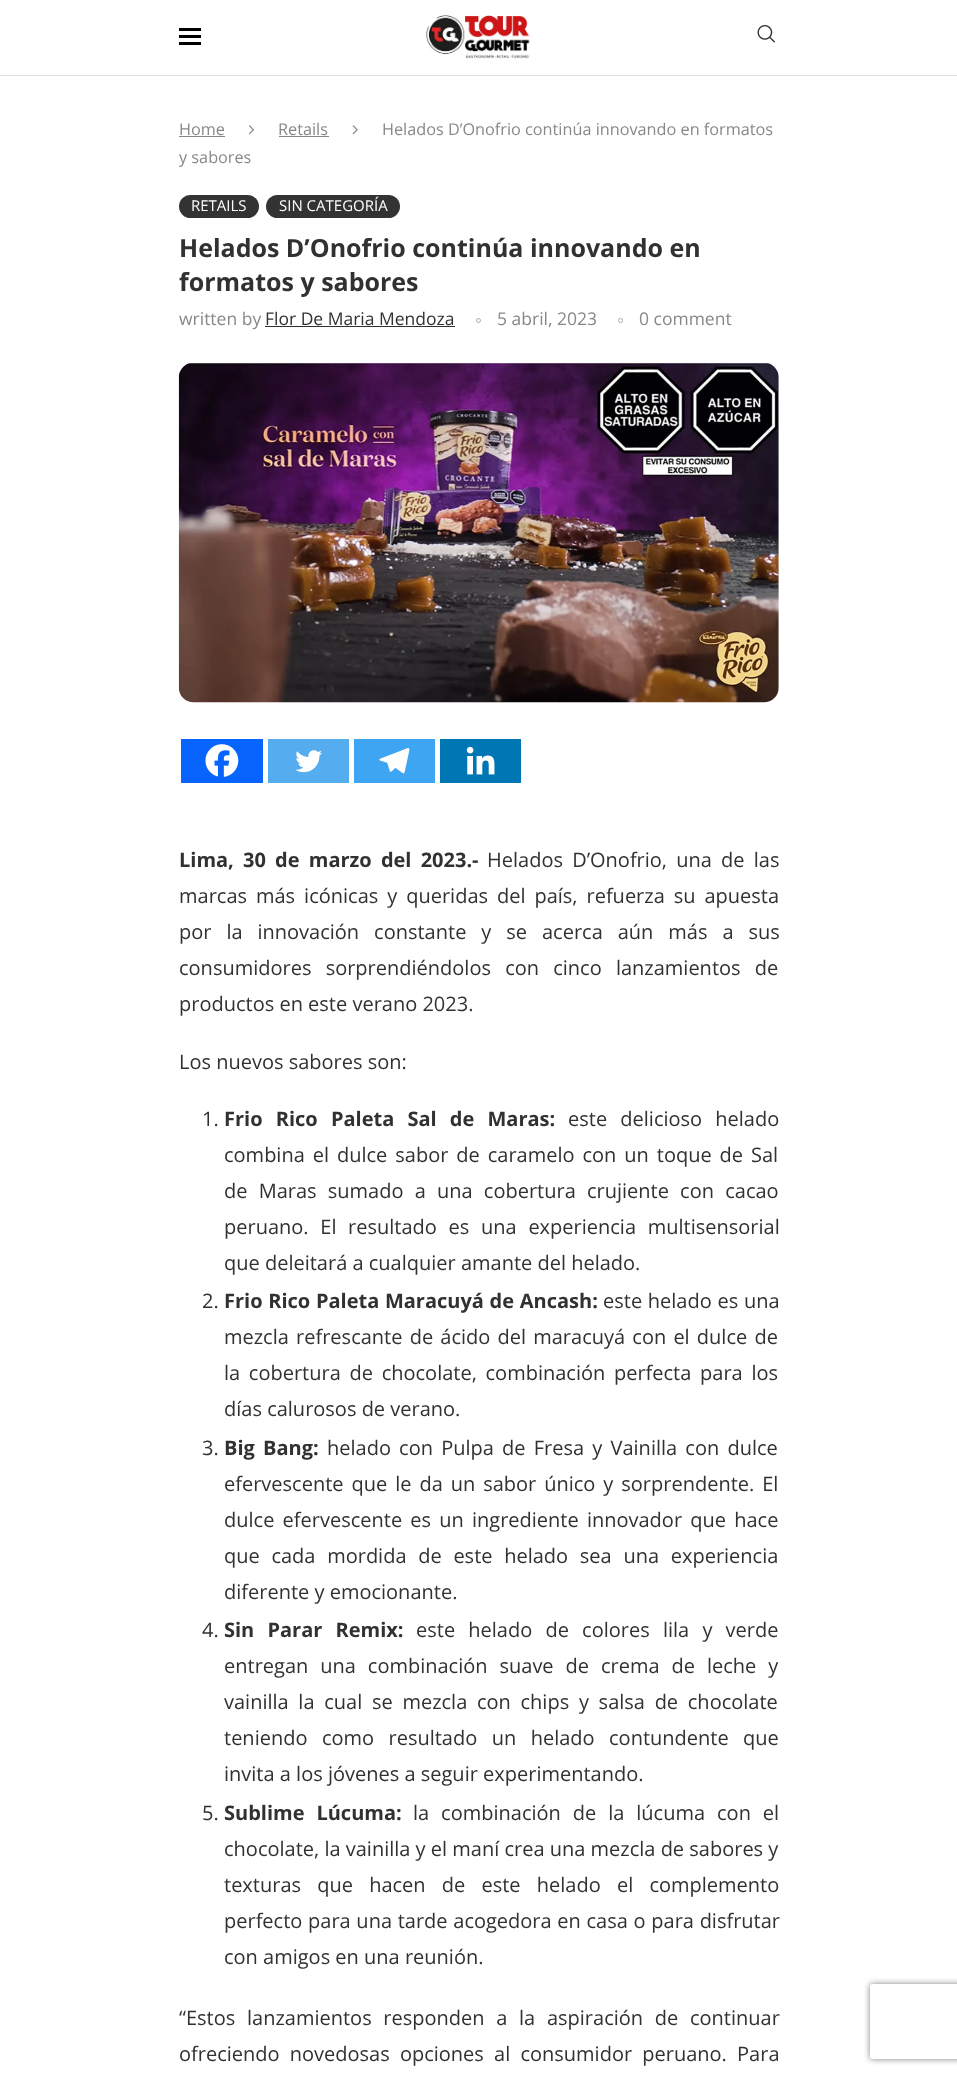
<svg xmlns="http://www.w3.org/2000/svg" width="957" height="2076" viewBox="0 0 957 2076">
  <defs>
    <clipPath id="clip1"><path d="M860 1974H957V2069H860ZM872.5 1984H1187.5C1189 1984 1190 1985 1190 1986.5V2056.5C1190 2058 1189 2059 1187.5 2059H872.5C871 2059 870 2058 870 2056.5V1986.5C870 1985 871 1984 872.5 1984Z" clip-rule="evenodd"/></clipPath>
  </defs>
  <rect width="100%" height="100%" fill="rgb(255,255,255)"/>
  <rect x="0" y="75" width="957" height="1" fill="rgb(222,222,222)"/>
  <rect x="179" y="28" width="22" height="3" fill="rgb(0,0,0)"/>
  <rect x="179" y="35" width="22" height="3" fill="rgb(0,0,0)"/>
  <rect x="179" y="42" width="22" height="3" fill="rgb(0,0,0)"/>
  <image x="426" y="15" width="104" height="44" href="pic1.png"/>
  <image x="757" y="25" width="18" height="18" href="pic2.png"/>
  <text x="179" y="135" font-family="Open Sans" font-size="16.25" fill="rgb(136,136,136)">Home</text>
  <rect x="179" y="136" width="46" height="1" fill="rgb(136,136,136)"/>
  <image x="248" y="125" width="7" height="10" href="pic3.png"/>
  <text x="278" y="135" font-family="Open Sans" font-size="16.25" fill="rgb(136,136,136)">Retails</text>
  <rect x="279" y="136" width="50" height="1" fill="rgb(136,136,136)"/>
  <image x="352" y="125" width="6" height="10" href="pic4.png"/>
  <g font-family="Open Sans" font-size="16.25" fill="rgb(136,136,136)">
    <text x="382" y="135">Helados D’Onofrio continúa innovando en formatos</text>
    <text x="179" y="163">y sabores</text>
  </g>
  <rect x="179" y="195" width="80" height="23" rx="11.5" fill="rgb(51,51,51)"/>
  <text x="191" y="211" font-family="Open Sans" font-size="15" fill="rgb(255,255,255)">RETAILS</text>
  <rect x="266" y="195" width="134" height="23" rx="11.5" fill="rgb(51,51,51)"/>
  <text x="279" y="211" font-family="Open Sans" font-size="15" fill="rgb(255,255,255)">SIN CATEGORÍA</text>
  <g font-family="Open Sans" font-size="25" font-weight="bold" fill="rgb(49,49,49)">
    <text>
      <tspan x="179" y="257">Helados D’Onofrio continúa innovando en</tspan>
      <tspan x="179" y="291">formatos y sabores</tspan>
    </text>
  </g>
  <text x="179" y="325" font-family="Open Sans" font-size="17.5" fill="rgb(136,136,136)">written by</text>
  <rect x="265" y="326" width="190" height="1" fill="rgb(49,49,49)"/>
  <text x="265" y="325" font-family="Open Sans" font-size="17.5" fill="rgb(49,49,49)">Flor De Maria Mendoza</text>
  <circle cx="478.5" cy="320.5" r="2" fill="none" stroke="rgb(172,172,172)"/>
  <text x="497" y="325" font-family="Open Sans" font-size="17.5" fill="rgb(136,136,136)">5 abril, 2023</text>
  <circle cx="620.5" cy="320.5" r="2" fill="none" stroke="rgb(172,172,172)"/>
  <text x="639" y="325" font-family="Open Sans" font-size="17.5" fill="rgb(136,136,136)">0 comment</text>
  <image x="178" y="362" width="601" height="341" href="pic5.png"/>
  <rect x="181" y="739" width="82" height="44" fill="rgb(7,101,254)"/>
  <image x="205" y="744" width="34" height="33" href="pic6.png"/>
  <rect x="268" y="739" width="81" height="44" fill="rgb(85,172,238)"/>
  <image x="295" y="750" width="27" height="23" href="pic7.png"/>
  <rect x="354" y="739" width="81" height="44" fill="rgb(61,165,241)"/>
  <image x="379" y="748" width="31" height="26" href="pic8.png"/>
  <rect x="440" y="739" width="81" height="44" fill="rgb(0,119,181)"/>
  <image x="466" y="746" width="29" height="29" href="pic9.png"/>
  <text x="179" y="867" word-spacing="4" font-family="Open Sans" font-size="20" font-weight="bold" fill="rgb(49,49,49)">Lima, 30 de marzo del 2023.-</text>
  <g font-family="Open Sans" font-size="20" fill="rgb(49,49,49)">
    <text x="487" y="867" word-spacing="4">Helados D’Onofrio, una de las</text>
    <text>
      <tspan x="179" y="903" word-spacing="3.75">marcas más icónicas y queridas del país, refuerza su apuesta</tspan>
      <tspan x="179" y="939" word-spacing="9.75">por la innovación constante y se acerca aún más a sus</tspan>
      <tspan x="179" y="975" word-spacing="9">consumidores sorprendiéndolos con cinco lanzamientos de</tspan>
      <tspan x="179" y="1011">productos en este verano 2023.</tspan>
    </text>
    <text x="179" y="1069">Los nuevos sabores son:</text>
    <text x="202" y="1126">1.</text>
  </g>
  <text x="224" y="1126" word-spacing="8" font-family="Open Sans" font-size="20" font-weight="bold" fill="rgb(49,49,49)">Frio Rico Paleta Sal de Maras:</text>
  <g font-family="Open Sans" font-size="20" fill="rgb(49,49,49)">
    <text x="568" y="1126" word-spacing="8">este delicioso helado</text>
    <text>
      <tspan x="224" y="1162" word-spacing="2.75">combina el dulce sabor de caramelo con un toque de Sal</tspan>
      <tspan x="224" y="1198" word-spacing="6">de Maras sumado a una cobertura crujiente con cacao</tspan>
      <tspan x="224" y="1234" word-spacing="6.5">peruano. El resultado es una experiencia multisensorial</tspan>
      <tspan x="224" y="1270">que deleitará a cualquier amante del helado.</tspan>
    </text>
    <text x="202" y="1308">2.</text>
  </g>
  <text x="224" y="1308" word-spacing="0.5" font-family="Open Sans" font-size="20" font-weight="bold" fill="rgb(49,49,49)">Frio Rico Paleta Maracuyá de Ancash:</text>
  <g font-family="Open Sans" font-size="20" fill="rgb(49,49,49)">
    <text x="603" y="1308" word-spacing="0.5">este helado es una</text>
    <text>
      <tspan x="224" y="1344" word-spacing="2">mezcla refrescante de ácido del maracuyá con el dulce de</tspan>
      <tspan x="224" y="1380" word-spacing="3.5">la cobertura de chocolate, combinación perfecta para los</tspan>
      <tspan x="224" y="1416">días calurosos de verano.</tspan>
    </text>
    <text x="202" y="1455">3.</text>
  </g>
  <text x="224" y="1455" word-spacing="3" font-family="Open Sans" font-size="20" font-weight="bold" fill="rgb(49,49,49)">Big Bang:</text>
  <g font-family="Open Sans" font-size="20" fill="rgb(49,49,49)">
    <text x="327" y="1455" word-spacing="3">helado con Pulpa de Fresa y Vainilla con dulce</text>
    <text>
      <tspan x="224" y="1491" word-spacing="2.75">efervescente que le da un sabor único y sorprendente. El</tspan>
      <tspan x="224" y="1527" word-spacing="3">dulce efervescente es un ingrediente innovador que hace</tspan>
      <tspan x="224" y="1563" word-spacing="6.5">que cada mordida de este helado sea una experiencia</tspan>
      <tspan x="224" y="1599">diferente y emocionante.</tspan>
    </text>
    <text x="202" y="1637">4.</text>
  </g>
  <text x="224" y="1637" word-spacing="8" font-family="Open Sans" font-size="20" font-weight="bold" fill="rgb(49,49,49)">Sin Parar Remix:</text>
  <g font-family="Open Sans" font-size="20" fill="rgb(49,49,49)">
    <text x="416" y="1637" word-spacing="8">este helado de colores lila y verde</text>
    <text>
      <tspan x="224" y="1673" word-spacing="6.75">entregan una combinación suave de crema de leche y</tspan>
      <tspan x="224" y="1709" word-spacing="4.5">vainilla la cual se mezcla con chips y salsa de chocolate</tspan>
      <tspan x="224" y="1745" word-spacing="9.25">teniendo como resultado un helado contundente que</tspan>
      <tspan x="224" y="1781">invita a los jóvenes a seguir experimentando.</tspan>
    </text>
    <text x="202" y="1820">5.</text>
  </g>
  <text x="224" y="1820" word-spacing="6.75" font-family="Open Sans" font-size="20" font-weight="bold" fill="rgb(49,49,49)">Sublime Lúcuma:</text>
  <g font-family="Open Sans" font-size="20" fill="rgb(49,49,49)">
    <text x="413" y="1820" word-spacing="6.75">la combinación de la lúcuma con el</text>
    <text>
      <tspan x="224" y="1856">chocolate, la vainilla y el maní crea una mezcla de sabores y</tspan>
      <tspan x="224" y="1892" word-spacing="11">texturas que hacen de este helado el complemento</tspan>
      <tspan x="224" y="1928" word-spacing="0.5">perfecto para una tarde acogedora en casa o para disfrutar</tspan>
      <tspan x="224" y="1964">con amigos en una reunión.</tspan>
    </text>
    <text>
      <tspan x="179" y="2025" word-spacing="6.5">“Estos lanzamientos responden a la aspiración de continuar</tspan>
      <tspan x="179" y="2061" word-spacing="5">ofreciendo novedosas opciones al consumidor peruano. Para</tspan>
    </text>
  </g>
  <g clip-path="url(#clip1)">
    <rect x="870" y="1984" width="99" height="75" rx="2.5" fill="rgb(128,128,128)" filter="blur(3px)"/>
  </g>
</svg>
